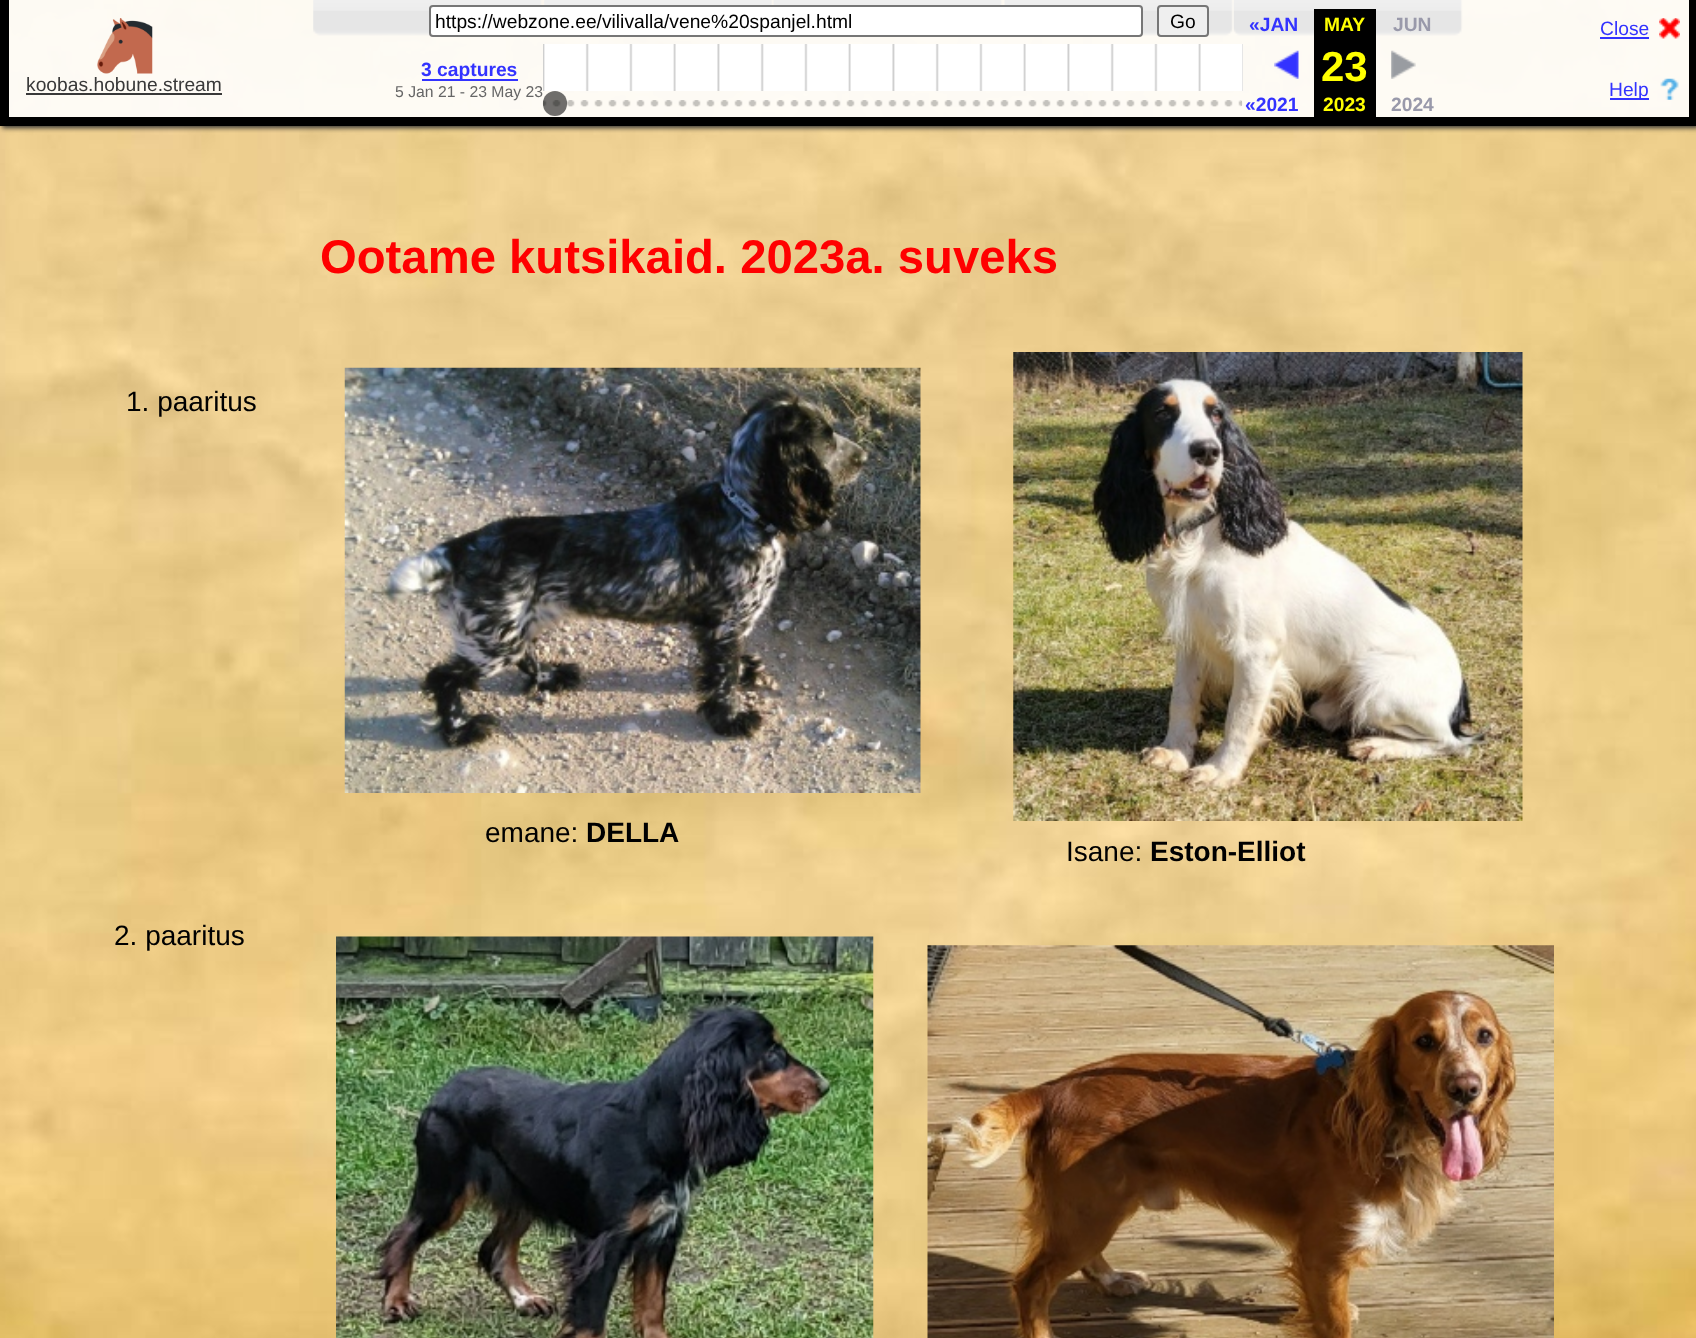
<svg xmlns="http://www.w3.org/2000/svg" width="1696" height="1338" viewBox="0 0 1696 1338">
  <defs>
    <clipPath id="clip1"><rect x="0" y="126" width="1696" height="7"/></clipPath>
  </defs>
  <rect width="100%" height="100%" fill="rgb(255,255,255)"/>
  <image x="0" y="0" width="1696" height="1338" href="pic1.png"/>
  <image x="314" y="0" width="691" height="29" href="pic10.png"/>
  <image x="313" y="0" width="230" height="36" href="pic9.png"/>
  <image x="544" y="0" width="230" height="5" href="pic11.png"/>
  <image x="773" y="0" width="230" height="5" href="pic12.png"/>
  <image x="1004" y="0" width="230" height="36" href="pic13.png"/>
  <image x="1233" y="0" width="230" height="36" href="pic14.png"/>
  <g clip-path="url(#clip1)">
    <rect x="2" y="2" width="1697" height="126" fill="rgb(51,51,51)" filter="blur(2.5px)"/>
  </g>
  <rect x="9" y="0" width="1680" height="117" fill="rgba(255,255,255,0.9)"/>
  <rect x="1689" y="0" width="7" height="117" fill="rgb(0,0,0)"/>
  <rect x="9" y="117" width="1687" height="9" fill="rgb(0,0,0)"/>
  <rect x="0" y="0" width="9" height="126" fill="rgb(0,0,0)"/>
  <image x="97" y="18" width="56" height="56" href="pic2.png"/>
  <text x="26" y="91" font-family="Liberation Sans" font-size="19.25" fill="rgb(57,57,57)">koobas.hobune.stream</text>
  <rect x="26" y="93" width="196" height="2" fill="rgb(57,57,57)"/>
  <rect x="430" y="6" width="712" height="30" rx="3" fill="rgb(255,255,255)" stroke="rgb(118,118,118)" stroke-width="2"/>
  <text x="435" y="28" font-family="Liberation Sans" font-size="19.25" fill="rgb(0,0,0)">https://webzone.ee/vilivalla/vene%20spanjel.html</text>
  <rect x="1158" y="6" width="50" height="30" rx="3" fill="rgb(239,239,239)" stroke="rgb(118,118,118)" stroke-width="2"/>
  <text x="1170" y="28" font-family="Liberation Sans" font-size="19.25" fill="rgb(0,0,0)">Go</text>
  <text x="1249" y="31" font-family="Liberation Sans" font-size="19.25" font-weight="bold" fill="rgb(51,51,255)">«JAN</text>
  <rect x="1314" y="9" width="62" height="108" fill="rgb(0,0,0)"/>
  <text x="1324" y="31" font-family="Liberation Sans" font-size="19.25" font-weight="bold" fill="rgb(255,255,0)">MAY</text>
  <text x="1393" y="31" font-family="Liberation Sans" font-size="19.25" font-weight="bold" fill="rgb(153,153,170)">JUN</text>
  <image x="1274" y="50" width="25" height="29" href="pic3.png"/>
  <text x="1321" y="81" font-family="Liberation Sans" font-size="42" font-weight="bold" fill="rgb(255,255,0)">23</text>
  <image x="1391" y="50" width="25" height="29" href="pic4.png"/>
  <text x="1245" y="111" font-family="Liberation Sans" font-size="19.25" font-weight="bold" fill="rgb(51,51,255)">«2021</text>
  <text x="1323" y="111" font-family="Liberation Sans" font-size="19.25" font-weight="bold" fill="rgb(255,255,0)">2023</text>
  <text x="1391" y="111" font-family="Liberation Sans" font-size="19.25" font-weight="bold" fill="rgb(153,153,170)">2024</text>
  <rect x="422" y="79" width="96" height="2" fill="rgb(51,51,255)"/>
  <text x="421" y="76" font-family="Liberation Sans" font-size="19.25" font-weight="bold" fill="rgb(51,51,255)">3 captures</text>
  <text x="395" y="97" font-family="Liberation Sans" font-size="15.75" fill="rgb(102,102,102)">5 Jan 21 - 23 May 23</text>
  <rect x="543" y="44" width="700" height="47" fill="rgb(255,255,255)"/>
  <image x="543" y="44" width="700" height="47" href="pic5.png"/>
  <image x="542" y="100" width="701" height="7" href="pic6.png"/>
  <rect x="543" y="91" width="24" height="25" rx="12" fill="rgba(0,0,0,0.56)"/>
  <image x="1659" y="18" width="21" height="21" href="pic7.png"/>
  <text x="1600" y="35" font-family="Liberation Sans" font-size="19.25" fill="rgb(51,51,255)">Close</text>
  <rect x="1600" y="37" width="49" height="2" fill="rgb(51,51,255)"/>
  <image x="1660" y="78" width="19" height="22" href="pic8.png"/>
  <rect x="1610" y="98" width="39" height="2" fill="rgb(51,51,255)"/>
  <text x="1609" y="96" font-family="Liberation Sans" font-size="19.25" fill="rgb(51,51,255)">Help</text>
  <text x="320" y="273" font-family="Liberation Sans" font-size="47.25" font-weight="bold" fill="rgb(255,0,0)">Ootame kutsikaid. 2023a. suveks</text>
  <text x="126" y="411" font-family="Liberation Sans" font-size="28" fill="rgb(0,0,0)">1. paaritus</text>
  <image x="344" y="367" width="577" height="426" href="pic15.png"/>
  <image x="1013" y="352" width="510" height="469" href="pic16.png"/>
  <text x="485" y="842" font-family="Liberation Sans" font-size="28" fill="rgb(0,0,0)">emane:</text>
  <text x="586" y="842" font-family="Liberation Sans" font-size="28" font-weight="bold" fill="rgb(0,0,0)">DELLA</text>
  <text x="1066" y="861" font-family="Liberation Sans" font-size="28" fill="rgb(0,0,0)">Isane:</text>
  <text x="1150" y="861" font-family="Liberation Sans" font-size="28" font-weight="bold" fill="rgb(0,0,0)">Eston-Elliot</text>
  <text x="114" y="945" font-family="Liberation Sans" font-size="28" fill="rgb(0,0,0)">2. paaritus</text>
  <image x="336" y="936" width="538" height="402" href="pic17.png"/>
  <image x="927" y="945" width="627" height="393" href="pic18.png"/>
</svg>
